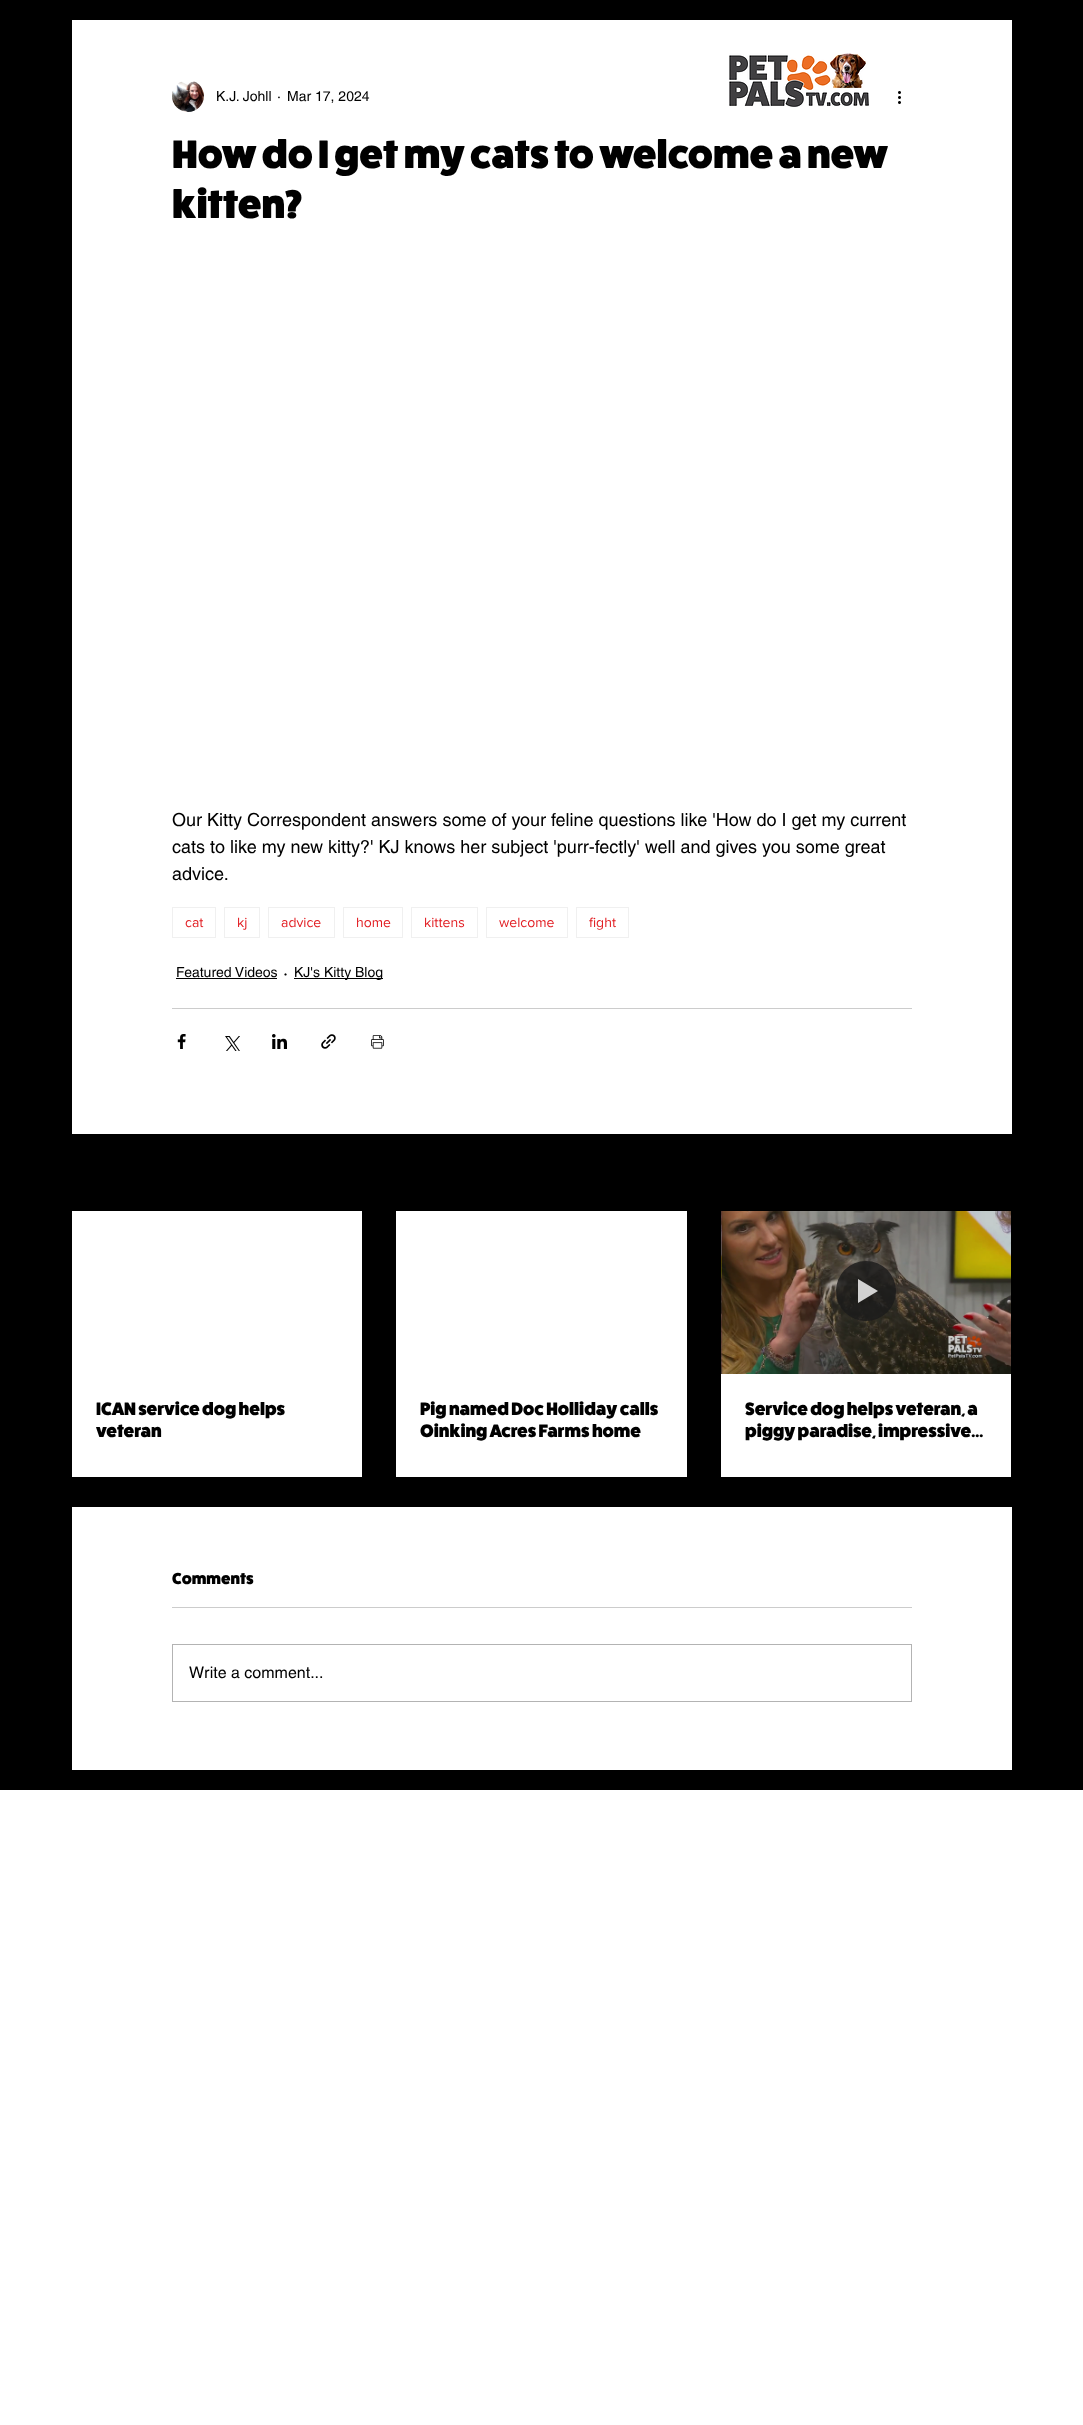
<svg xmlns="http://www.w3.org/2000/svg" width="1083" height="2425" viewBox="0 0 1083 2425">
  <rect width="100%" height="100%" fill="rgb(255,255,255)"/>
  <rect x="0" y="0" width="1083" height="1790" fill="rgb(0,0,0)"/>
  <rect x="72" y="20" width="940" height="1114" fill="rgb(255,255,255)"/>
  <image x="729" y="53" width="140" height="54" href="pic1.png"/>
  <image x="172" y="81" width="32" height="31" href="pic2.png"/>
  <g font-family="helvetica" font-size="14" fill="rgb(0,0,0)">
    <text x="216" y="101">K.J. Johll</text>
    <text x="277" y="101">·</text>
    <text x="287" y="101">Mar 17, 2024</text>
  </g>
  <image x="898" y="91" width="3" height="13" href="pic3.png"/>
  <g font-family="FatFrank" font-size="40" font-weight="900" fill="rgb(0,0,0)">
    <text>
      <tspan x="172" y="168">How do I get my cats to welcome a new</tspan>
      <tspan x="172" y="218">kitten?</tspan>
    </text>
  </g>
  <g font-family="helvetica" font-size="18" fill="rgb(0,0,0)">
    <text>
      <tspan x="172" y="826">Our Kitty Correspondent answers some of your feline questions like 'How do I get my current</tspan>
      <tspan x="172" y="853">cats to like my new kitty?' KJ knows her subject 'purr-fectly' well and gives you some great</tspan>
      <tspan x="172" y="880">advice.</tspan>
    </text>
  </g>
  <rect x="172.5" y="907.5" width="43" height="30" fill="none" stroke="rgb(240,240,240)"/>
  <text x="185" y="927" font-family="'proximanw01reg'" font-size="14" fill="rgb(226,28,33)">cat</text>
  <rect x="224.5" y="907.5" width="35" height="30" fill="none" stroke="rgb(240,240,240)"/>
  <text x="237" y="927" font-family="'proximanw01reg'" font-size="14" fill="rgb(226,28,33)">kj</text>
  <rect x="268.5" y="907.5" width="66" height="30" fill="none" stroke="rgb(240,240,240)"/>
  <text x="281" y="927" font-family="'proximanw01reg'" font-size="14" fill="rgb(226,28,33)">advice</text>
  <rect x="343.5" y="907.5" width="59" height="30" fill="none" stroke="rgb(240,240,240)"/>
  <text x="356" y="927" font-family="'proximanw01reg'" font-size="14" fill="rgb(226,28,33)">home</text>
  <rect x="411.5" y="907.5" width="66" height="30" fill="none" stroke="rgb(240,240,240)"/>
  <text x="424" y="927" font-family="'proximanw01reg'" font-size="14" fill="rgb(226,28,33)">kittens</text>
  <rect x="486.5" y="907.5" width="81" height="30" fill="none" stroke="rgb(240,240,240)"/>
  <text x="499" y="927" font-family="'proximanw01reg'" font-size="14" fill="rgb(226,28,33)">welcome</text>
  <rect x="576.5" y="907.5" width="52" height="30" fill="none" stroke="rgb(240,240,240)"/>
  <text x="589" y="927" font-family="'proximanw01reg'" font-size="14" fill="rgb(226,28,33)">fight</text>
  <text x="176" y="977" font-family="helvetica" font-size="14" fill="rgb(0,0,0)">Featured Videos</text>
  <rect x="176" y="978" width="101" height="1" fill="rgb(0,0,0)"/>
  <text x="283" y="979" font-family="helvetica" font-size="18" fill="rgb(0,0,0)">·</text>
  <rect x="294" y="978" width="89" height="1" fill="rgb(0,0,0)"/>
  <text x="294" y="977" font-family="helvetica" font-size="14" fill="rgb(0,0,0)">KJ's Kitty Blog</text>
  <rect x="172" y="1008" width="740" height="1" fill="rgb(204,204,204)"/>
  <image x="177" y="1034" width="9" height="15" href="pic4.png"/>
  <image x="225" y="1036" width="15" height="15" href="pic5.png"/>
  <image x="272" y="1034" width="15" height="15" href="pic6.png"/>
  <image x="321" y="1034" width="15" height="15" href="pic7.png"/>
  <image x="371" y="1035" width="13" height="14" href="pic8.png"/>
  <rect x="72" y="1211" width="290" height="266" fill="rgb(255,255,255)"/>
  <g font-family="FatFrank" font-size="18" font-weight="900" fill="rgb(0,0,0)">
    <text>
      <tspan x="96" y="1415">ICAN service dog helps</tspan>
      <tspan x="96" y="1437">veteran</tspan>
    </text>
  </g>
  <rect x="396" y="1211" width="291" height="266" fill="rgb(255,255,255)"/>
  <g font-family="FatFrank" font-size="18" font-weight="900" fill="rgb(0,0,0)">
    <text>
      <tspan x="420" y="1415">Pig named Doc Holliday calls</tspan>
      <tspan x="420" y="1437">Oinking Acres Farms home</tspan>
    </text>
  </g>
  <rect x="721" y="1374" width="290" height="103" fill="rgb(255,255,255)"/>
  <image x="721" y="1211" width="290" height="163" href="pic9.png"/>
  <circle cx="866" cy="1291" r="30" fill="rgba(26,26,26,0.8)"/>
  <path d="M858 1279V1303L878 1291Z" fill="rgba(255,255,255,0.8)"/>
  <g font-family="FatFrank" font-size="18" font-weight="900" fill="rgb(0,0,0)">
    <text>
      <tspan x="745" y="1415">Service dog helps veteran, a</tspan>
      <tspan x="745" y="1437">piggy paradise, impressive...</tspan>
    </text>
  </g>
  <rect x="72" y="1507" width="940" height="263" fill="rgb(255,255,255)"/>
  <text x="172" y="1584" font-family="FatFrank" font-size="16" font-weight="900" fill="rgb(0,0,0)">Comments</text>
  <rect x="172" y="1607" width="740" height="1" fill="rgb(204,204,204)"/>
  <rect x="172.5" y="1644.5" width="739" height="57" fill="none" stroke="rgb(179,179,179)"/>
  <text x="189" y="1678" font-family="helvetica" font-size="16" fill="rgb(0,0,0)">Write a comment...</text>
</svg>
